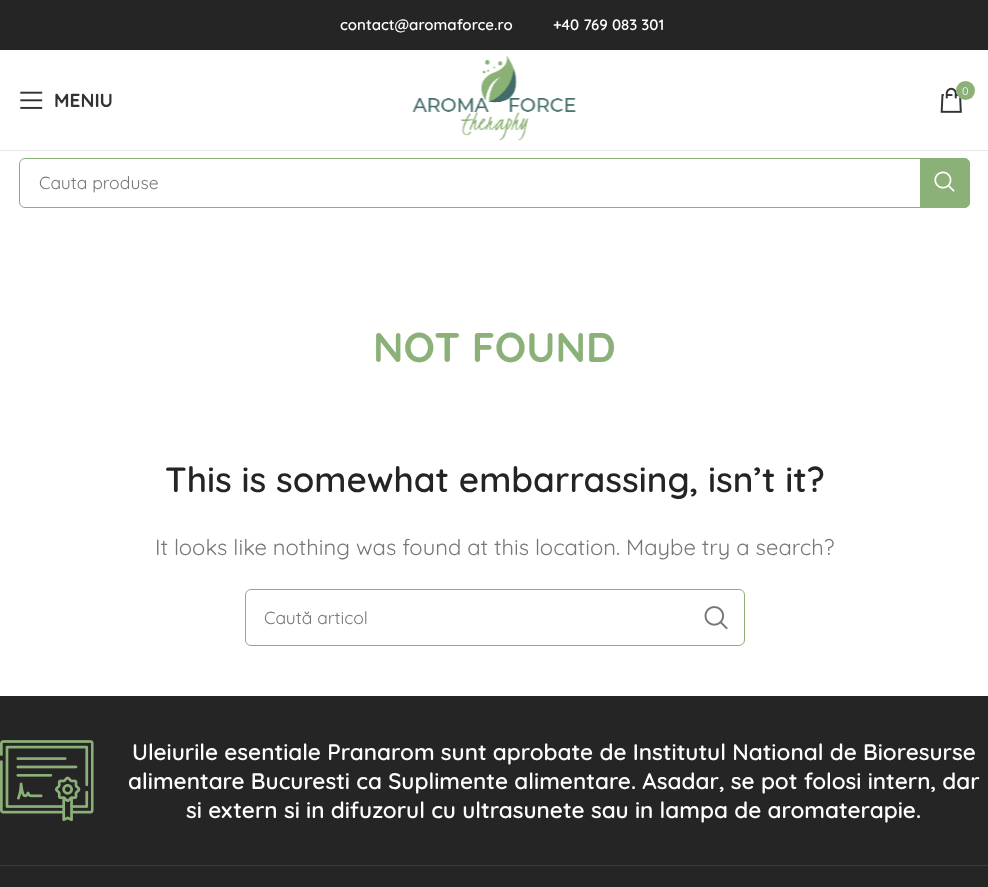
<svg xmlns="http://www.w3.org/2000/svg" width="988" height="887" viewBox="0 0 988 887">
  <rect width="100%" height="100%" fill="rgb(255,255,255)"/>
  <rect x="0" y="0" width="988" height="50" fill="rgb(37,37,37)"/>
  <g font-family="Quicksand" font-size="15" font-weight="600" fill="rgb(255,255,255)">
    <text x="340" y="30">contact@aromaforce.ro</text>
    <text x="553" y="30">+40 769 083 301</text>
  </g>
  <rect x="0" y="150" width="988" height="1" fill="rgb(230,230,230)"/>
  <image x="412" y="56" width="164" height="85" href="pic1.png"/>
  <image x="940" y="87" width="22" height="26" href="pic2.png"/>
  <circle cx="965.5" cy="90.5" r="9.5" fill="rgb(140,177,120)"/>
  <text x="962" y="95" font-family="Quicksand" font-size="11" fill="rgb(255,255,255)">0</text>
  <image x="20" y="91" width="23" height="18" href="pic3.png"/>
  <text x="54" y="107" font-family="Quicksand" font-size="19" font-weight="bold" fill="rgb(51,51,51)">MENIU</text>
  <rect x="19.5" y="158.5" width="950" height="49" rx="5.5" fill="none" stroke="rgb(140,177,120)"/>
  <text x="39" y="189" font-family="Quicksand" font-size="17.5" fill="rgb(119,119,119)">Cauta produse</text>
  <path d="M920 158H964C967.5 158 970 160.5 970 164V202C970 205.5 967.5 208 964 208H920Z" fill="rgb(140,177,120)"/>
  <image x="934" y="171" width="21" height="21" href="pic4.png"/>
  <text x="373" y="362" font-family="Quicksand" font-size="41.5" font-weight="bold" fill="rgb(140,177,120)">NOT FOUND</text>
  <text x="165" y="492" font-family="Quicksand" font-size="35" font-weight="600" fill="rgb(36,36,36)">This is somewhat embarrassing, isn’t it?</text>
  <text x="155" y="555" font-family="Quicksand" font-size="22" fill="rgb(119,119,119)">It looks like nothing was found at this location. Maybe try a search?</text>
  <rect x="245.5" y="589.5" width="499" height="56" rx="5.5" fill="none" stroke="rgb(140,177,120)"/>
  <text x="264" y="624" font-family="Quicksand" font-size="17.5" fill="rgb(119,119,119)">Caută articol</text>
  <image x="704" y="606" width="24" height="24" href="pic5.png"/>
  <rect x="0" y="696" width="988" height="169" fill="rgb(37,37,37)"/>
  <rect x="0" y="865" width="988" height="1" fill="rgb(59,59,59)"/>
  <image x="0" y="740" width="94" height="82" href="pic6.png"/>
  <g font-family="Quicksand" font-size="22.5" font-weight="600" fill="rgb(255,255,255)">
    <text x="132" y="760">Uleiurile esentiale Pranarom sunt aprobate de Institutul National de Bioresurse</text>
    <text x="128" y="789">alimentare Bucuresti ca Suplimente alimentare. Asadar, se pot folosi intern, dar</text>
    <text x="186" y="818">si extern si in difuzorul cu ultrasunete sau in lampa de aromaterapie.</text>
  </g>
  <rect x="0" y="866" width="988" height="21" fill="rgb(37,37,37)"/>
</svg>
